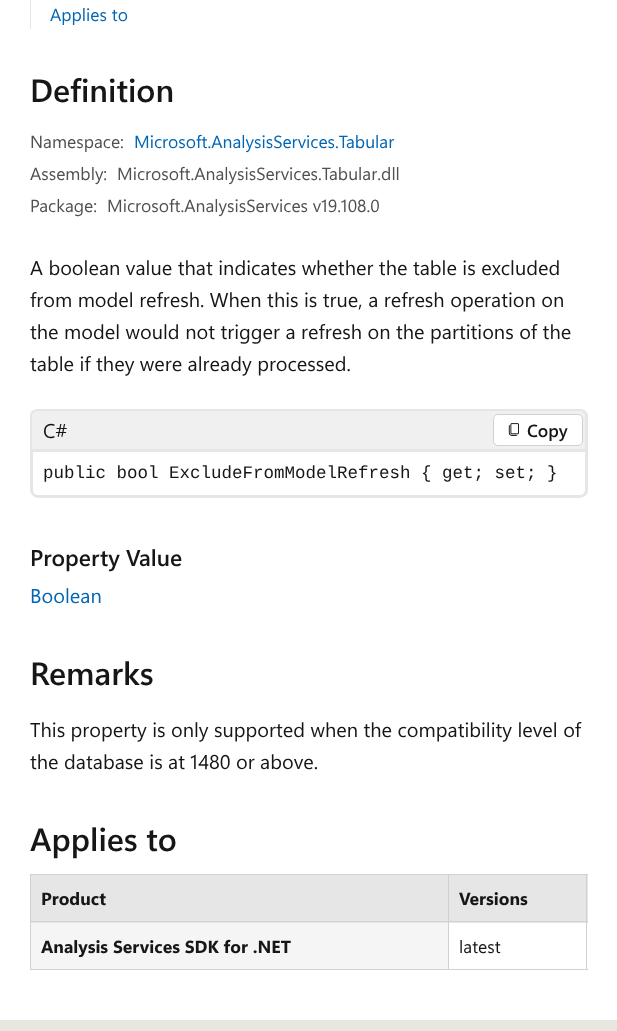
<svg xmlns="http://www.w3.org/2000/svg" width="617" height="1031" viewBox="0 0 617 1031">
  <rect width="100%" height="100%" fill="rgb(255,255,255)"/>
  <rect x="30" y="0" width="1" height="29" fill="rgb(230,230,230)"/>
  <text x="50" y="21" font-family="Segoe UI" font-size="17.5" fill="rgb(0,101,179)">Applies to</text>
  <text x="30" y="102" font-family="Segoe UI" font-size="32" font-weight="600" fill="rgb(22,22,22)">Definition</text>
  <text x="30" y="148" font-family="Segoe UI" font-size="17.5" fill="rgb(80,80,80)">Namespace:</text>
  <text x="134" y="148" font-family="Segoe UI" font-size="17.5" fill="rgb(0,101,179)">Microsoft.AnalysisServices.Tabular</text>
  <g font-family="Segoe UI" font-size="17.5" fill="rgb(80,80,80)">
    <text x="30" y="180">Assembly:</text>
    <text x="117" y="180">Microsoft.AnalysisServices.Tabular.dll</text>
    <text x="30" y="212">Package:</text>
    <text x="107" y="212">Microsoft.AnalysisServices v19.108.0</text>
  </g>
  <g font-family="Segoe UI" font-size="20" fill="rgb(22,22,22)">
    <text>
      <tspan x="30" y="275">A boolean value that indicates whether the table is excluded</tspan>
      <tspan x="30" y="307">from model refresh. When this is true, a refresh operation on</tspan>
      <tspan x="30" y="339">the model would not trigger a refresh on the partitions of the</tspan>
      <tspan x="30" y="371">table if they were already processed.</tspan>
    </text>
  </g>
  <path d="M38 409H580C584.5 409 588 412.5 588 417V449H30V417C30 412.5 33.5 409 38 409Z" fill="rgb(240,240,240)"/>
  <path d="M38 409H580C584 409 588 412 588 416V449H30V416C30 412 33 409 38 409ZM38 411H580C583 411 585 413 585 416V449H32V416C32 413 35 411 38 411Z" fill="rgb(230,230,230)" fill-rule="evenodd"/>
  <text x="43" y="438" font-family="Segoe UI" font-size="20" fill="rgb(22,22,22)">C#</text>
  <rect x="493.5" y="414.5" width="89" height="31" rx="4.5" fill="rgb(255,255,255)" stroke="rgb(209,209,209)"/>
  <image x="508" y="423" width="11" height="13" href="pic1.png"/>
  <text x="527" y="437" font-family="Segoe UI" font-size="17.5" font-weight="600" fill="rgb(22,22,22)">Copy</text>
  <path d="M31.5 450.5H586.5V490C586.5 493.5 583.5 496.5 580 496.5H38C34.5 496.5 31.5 493.5 31.5 490Z" fill="none" stroke="rgb(230,230,230)" stroke-width="3"/>
  <text x="43" y="478" font-family="Liberation Mono" font-size="17.5" fill="rgb(22,22,22)">public bool ExcludeFromModelRefresh { get; set; }</text>
  <text x="30" y="566" font-family="Segoe UI" font-size="22.75" font-weight="600" fill="rgb(22,22,22)">Property Value</text>
  <text x="30" y="603" font-family="Segoe UI" font-size="20" fill="rgb(0,101,179)">Boolean</text>
  <text x="30" y="685" font-family="Segoe UI" font-size="32" font-weight="600" fill="rgb(22,22,22)">Remarks</text>
  <g font-family="Segoe UI" font-size="20" fill="rgb(22,22,22)">
    <text>
      <tspan x="30" y="737">This property is only supported when the compatibility level of</tspan>
      <tspan x="30" y="769">the database is at 1480 or above.</tspan>
    </text>
  </g>
  <text x="30" y="851" font-family="Segoe UI" font-size="32" font-weight="600" fill="rgb(22,22,22)">Applies to</text>
  <rect x="30" y="874" width="558" height="1" fill="rgb(209,209,209)"/>
  <rect x="31" y="875" width="557" height="48" fill="rgb(230,230,230)"/>
  <rect x="586" y="874" width="1" height="96" fill="rgb(209,209,209)"/>
  <rect x="30" y="969" width="558" height="1" fill="rgb(209,209,209)"/>
  <rect x="30" y="874" width="1" height="96" fill="rgb(209,209,209)"/>
  <text x="41" y="905" font-family="Segoe UI" font-size="17.5" font-weight="bold" fill="rgb(22,22,22)">Product</text>
  <rect x="448" y="921" width="140" height="1" fill="rgb(209,209,209)"/>
  <rect x="448" y="921" width="1" height="49" fill="rgb(209,209,209)"/>
  <rect x="30" y="921" width="419" height="1" fill="rgb(209,209,209)"/>
  <rect x="448" y="874" width="1" height="49" fill="rgb(209,209,209)"/>
  <text x="459" y="905" font-family="Segoe UI" font-size="17.5" font-weight="bold" fill="rgb(22,22,22)">Versions</text>
  <rect x="31" y="923" width="417" height="46" fill="rgb(245,245,245)"/>
  <text x="41" y="953" font-family="Segoe UI" font-size="17.5" font-weight="bold" fill="rgb(22,22,22)">Analysis Services SDK for .NET</text>
  <text x="459" y="953" font-family="Segoe UI" font-size="17.5" fill="rgb(22,22,22)">latest</text>
  <rect x="0" y="1021" width="617" height="10" fill="rgb(232,230,223)"/>
  <rect x="0" y="1020" width="617" height="1" fill="rgb(230,230,230)"/>
</svg>
